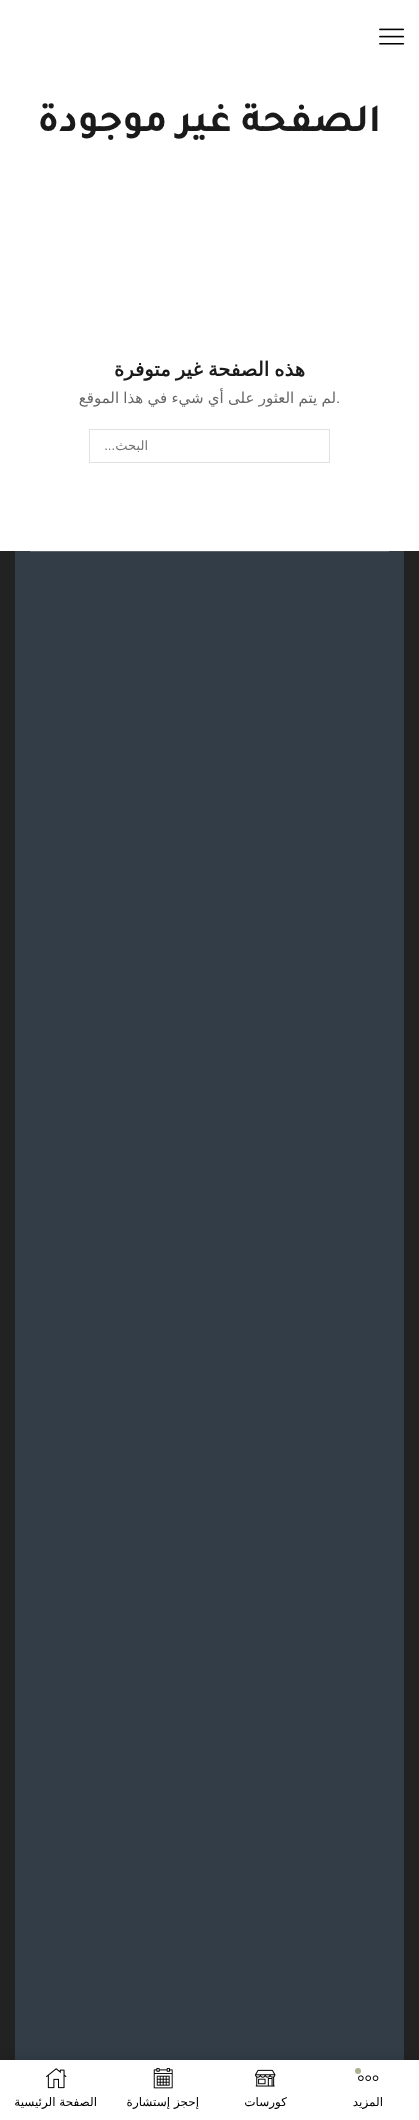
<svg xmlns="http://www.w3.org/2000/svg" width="419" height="2120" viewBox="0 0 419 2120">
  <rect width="100%" height="100%" fill="rgb(255,255,255)"/>
  <image x="379" y="28" width="26" height="17" href="pic1.png"/>
  <text x="381" y="131" font-family="Tajawal" font-size="40" font-weight="bold" direction="rtl" fill="rgb(26,26,26)">الصفحة غير موجودة</text>
  <text x="305" y="376" word-spacing="-1" font-family="DejaVu Sans" font-size="19.5" font-weight="bold" direction="rtl" fill="rgb(26,26,26)">هذه الصفحة غير متوفرة</text>
  <text x="336" y="403" font-family="Liberation Sans" font-size="15" fill="rgb(102,102,102)">.</text>
  <text x="336" y="403" word-spacing="-0.5" font-family="DejaVu Sans" font-size="15" direction="rtl" fill="rgb(102,102,102)">لم يتم العثور على أي شيء في هذا الموقع</text>
  <rect x="89.5" y="429.5" width="240" height="33" fill="none" stroke="rgb(225,225,225)"/>
  <text x="148" y="450" font-family="DejaVu Sans" font-size="13" direction="rtl" fill="rgb(117,117,117)">البحث</text>
  <text x="115" y="450" font-family="Liberation Sans" font-size="13" direction="rtl" fill="rgb(117,117,117)">...</text>
  <rect x="0" y="551" width="419" height="1509" fill="rgb(34,34,34)"/>
  <rect x="15" y="551" width="389" height="1509" fill="rgb(50,61,71)"/>
  <rect x="30" y="551" width="359" height="1" fill="rgb(91,100,108)"/>
  <rect x="2" y="2060" width="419" height="60" fill="rgba(0,0,0,0.15)" filter="blur(6px)"/>
  <rect x="0" y="2060" width="419" height="60" fill="rgb(255,255,255)"/>
  <circle cx="358" cy="2071" r="3" fill="rgb(174,174,147)"/>
  <image x="358" y="2075" width="21" height="6" href="pic2.png"/>
  <text x="383" y="2106" font-family="DejaVu Sans" font-size="12" direction="rtl" fill="rgb(0,0,0)">المزيد</text>
  <image x="255" y="2069" width="21" height="18" href="pic3.png"/>
  <text x="287" y="2106" font-family="DejaVu Sans" font-size="12" direction="rtl" fill="rgb(0,0,0)">كورسات</text>
  <image x="153" y="2068" width="20" height="21" href="pic4.png"/>
  <text x="199" y="2106" font-family="DejaVu Sans" font-size="12" direction="rtl" fill="rgb(0,0,0)">إحجز إستشارة</text>
  <image x="46" y="2068" width="21" height="21" href="pic5.png"/>
  <text x="97" y="2106" font-family="DejaVu Sans" font-size="12" direction="rtl" fill="rgb(0,0,0)">الصفحة الرئيسية</text>
</svg>
